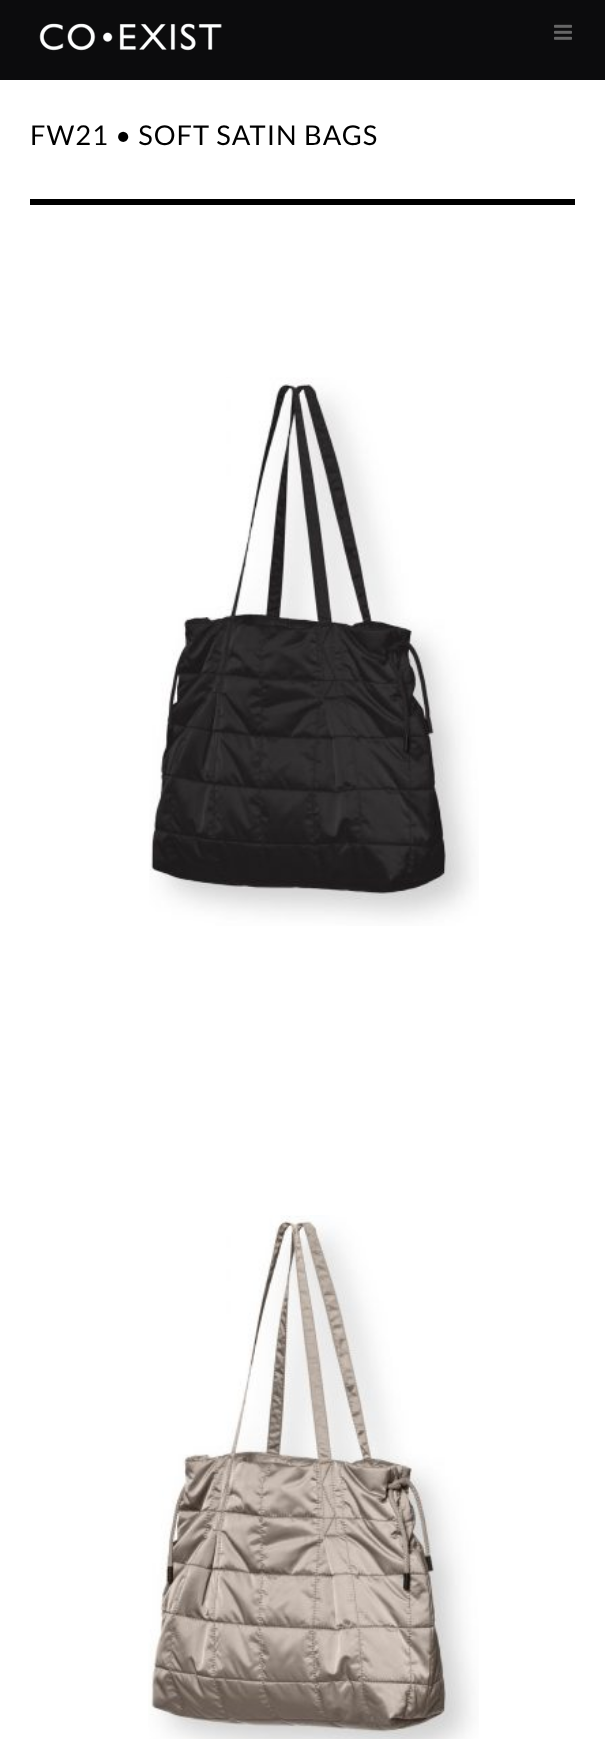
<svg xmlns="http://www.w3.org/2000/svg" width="605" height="1739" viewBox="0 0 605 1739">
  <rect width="100%" height="100%" fill="rgb(255,255,255)"/>
  <rect x="0" y="0" width="605" height="80" fill="rgb(12,12,13)"/>
  <image x="39" y="23" width="183" height="28" href="pic1.png"/>
  <image x="554" y="24" width="18" height="16" href="pic2.png"/>
  <text x="30" y="145" font-family="Lato" font-size="27.3" letter-spacing="1" fill="rgb(0,0,0)">FW21 • SOFT SATIN BAGS</text>
  <rect x="30" y="199" width="545" height="6" fill="rgb(0,0,0)"/>
  <image x="149" y="377" width="330" height="549" href="pic3.png"/>
  <image x="148" y="1215" width="331" height="524" href="pic4.png"/>
</svg>
